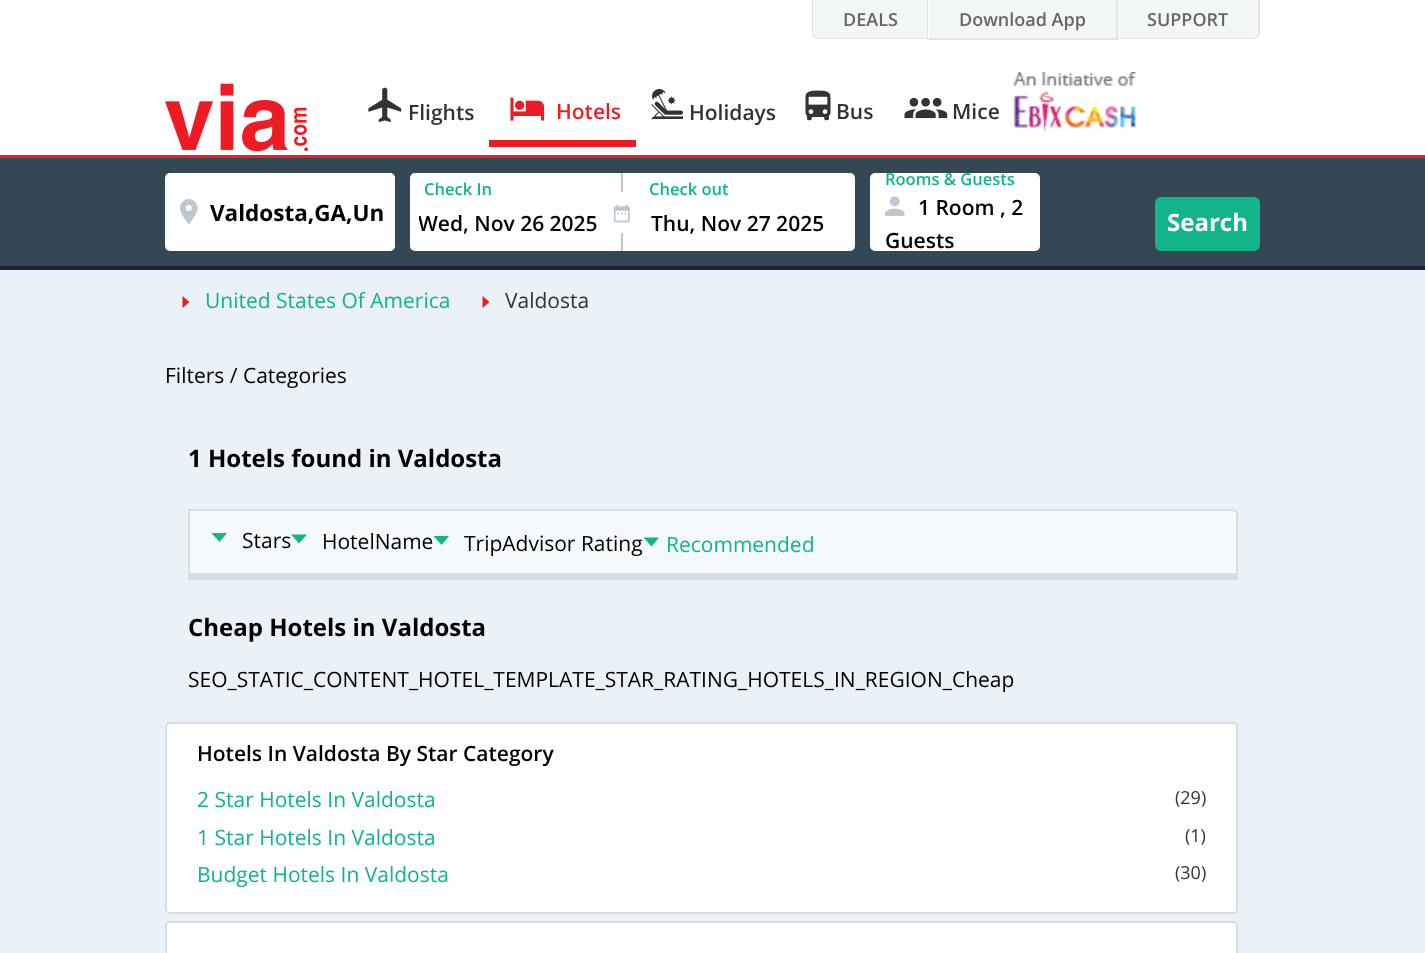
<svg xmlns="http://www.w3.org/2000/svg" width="1425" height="953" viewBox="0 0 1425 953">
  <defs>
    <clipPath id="clip1"><rect x="419" y="209" width="193" height="28"/></clipPath>
  </defs>
  <rect width="100%" height="100%" fill="rgb(255,255,255)"/>
  <rect x="0" y="155" width="1425" height="3" fill="rgb(237,28,36)"/>
  <path d="M813 0H927V38H818C815 38 813 36 813 33Z" fill="rgb(244,247,248)"/>
  <path d="M812 0H928V39H818C814 39 812 36 812 33ZM813 0H927V38H818C815 38 813 35 813 33Z" fill="rgb(224,229,231)" fill-rule="evenodd"/>
  <text x="843" y="26" font-family="Open Sans" font-size="18" font-weight="600" fill="rgb(102,102,102)">DEALS</text>
  <rect x="929" y="0" width="187" height="38" fill="rgb(244,247,248)"/>
  <rect x="1116" y="0" width="2" height="39" fill="rgb(224,229,231)"/>
  <rect x="929" y="38" width="189" height="2" fill="rgb(224,229,231)"/>
  <text x="959" y="26" font-family="Open Sans" font-size="18" font-weight="600" fill="rgb(102,102,102)">Download App</text>
  <path d="M1118 0H1259V33C1259 36 1257 38 1254 38H1118Z" fill="rgb(244,247,248)"/>
  <path d="M1118 0H1260V33C1260 36 1257 39 1254 39H1118ZM1118 0H1258V33C1258 35 1256 38 1254 38H1118Z" fill="rgb(224,229,231)" fill-rule="evenodd"/>
  <text x="1147" y="26" font-family="Open Sans" font-size="18" font-weight="600" fill="rgb(102,102,102)">SUPPORT</text>
  <image x="165" y="83" width="143" height="69" href="pic1.png"/>
  <image x="368" y="87" width="34" height="36" href="pic2.png"/>
  <text x="408" y="120" font-family="Open Sans" font-size="21" font-weight="600" fill="rgb(51,51,51)">Flights</text>
  <rect x="489" y="140" width="147" height="7" fill="rgb(237,28,36)"/>
  <image x="510" y="97" width="35" height="24" href="pic3.png"/>
  <text x="556" y="119" font-family="Open Sans" font-size="21" font-weight="600" fill="rgb(237,28,36)">Hotels</text>
  <image x="651" y="89" width="33" height="31" href="pic4.png"/>
  <text x="689" y="120" font-family="Open Sans" font-size="21" font-weight="600" fill="rgb(51,51,51)">Holidays</text>
  <image x="805" y="90" width="26" height="31" href="pic5.png"/>
  <text x="836" y="119" font-family="Open Sans" font-size="21" font-weight="600" fill="rgb(51,51,51)">Bus</text>
  <image x="904" y="97" width="44" height="22" href="pic6.png"/>
  <text x="952" y="119" font-family="Open Sans" font-size="21" font-weight="600" fill="rgb(51,51,51)">Mice</text>
  <image x="1014" y="72" width="122" height="60" href="pic7.png"/>
  <rect x="0" y="158" width="1425" height="108" fill="rgb(52,71,85)"/>
  <rect x="0" y="266" width="1425" height="4" fill="rgb(24,39,50)"/>
  <rect x="165" y="173" width="230" height="78" rx="5" fill="rgb(255,255,255)"/>
  <image x="180" y="199" width="18" height="25" href="pic8.png"/>
  <rect x="210" y="174" width="184" height="76" rx="5" fill="rgb(255,255,255)" stroke="rgb(255,255,255)" stroke-width="2"/>
  <text x="210" y="221" font-family="Open Sans" font-size="22.5" font-weight="bold" fill="rgb(0,0,0)">Valdosta,GA,Un</text>
  <rect x="410" y="173" width="445" height="78" rx="5" fill="rgb(255,255,255)"/>
  <rect x="621" y="173" width="2" height="78" fill="rgb(188,200,209)"/>
  <text x="424" y="195" font-family="Open Sans" font-size="16.5" font-weight="600" fill="rgb(18,181,138)">Check In</text>
  <g clip-path="url(#clip1)">
    <text x="418" y="231" font-family="Open Sans" font-size="21" font-weight="600" fill="rgb(0,0,0)">Wed, Nov 26 2025</text>
  </g>
  <rect x="621" y="192" width="2" height="41" fill="rgb(255,255,255)"/>
  <image x="613" y="204" width="17" height="19" href="pic9.png"/>
  <text x="649" y="195" font-family="Open Sans" font-size="16.5" font-weight="600" fill="rgb(18,181,138)">Check out</text>
  <text x="651" y="231" font-family="Open Sans" font-size="21" font-weight="600" fill="rgb(0,0,0)">Thu, Nov 27 2025</text>
  <rect x="870" y="173" width="170" height="78" rx="5" fill="rgb(255,255,255)"/>
  <text x="885" y="185" font-family="Open Sans" font-size="16.5" font-weight="600" fill="rgb(18,181,138)">Rooms &amp; Guests</text>
  <image x="885" y="196" width="20" height="20" href="pic10.png"/>
  <g font-family="Open Sans" font-size="21" font-weight="600" fill="rgb(0,0,0)">
    <text x="918" y="215">1 Room , 2</text>
    <text x="885" y="248">Guests</text>
  </g>
  <rect x="1156" y="198" width="103" height="52" rx="5" fill="rgb(18,181,138)" stroke="rgb(18,181,138)" stroke-width="2"/>
  <text x="1167" y="231" font-family="Open Sans" font-size="24" font-weight="bold" fill="rgb(255,255,255)">Search</text>
  <rect x="0" y="270" width="1425" height="683" fill="rgb(235,242,247)"/>
  <path d="M182.5 308L189.5 302L182.5 296Z" fill="rgb(237,28,36)"/>
  <text x="205" y="308" font-family="Open Sans" font-size="21" fill="rgb(18,181,138)">United States Of America</text>
  <path d="M482.5 308L489.5 302L482.5 296Z" fill="rgb(237,28,36)"/>
  <text x="505" y="308" font-family="Open Sans" font-size="21" fill="rgb(51,51,51)">Valdosta</text>
  <text x="165" y="383" font-family="Open Sans" font-size="21" fill="rgb(0,0,0)">Filters / Categories</text>
  <text x="188" y="467" font-family="Open Sans" font-size="24" font-weight="bold" fill="rgb(0,0,0)">1 Hotels found in Valdosta</text>
  <path d="M189 510H1231C1234 510 1236 512 1236 515V573H189Z" fill="rgb(246,249,252)"/>
  <path d="M189 510H1232C1235 510 1237 512 1237 515V577H189Z" fill="none" stroke="rgb(212,222,229)" stroke-width="2"/>
  <rect x="188" y="573" width="1050" height="3" fill="rgb(212,222,229)"/>
  <path d="M227 533L219.5 542L211.5 533Z" fill="rgb(18,181,138)"/>
  <text x="242" y="548" font-family="Open Sans" font-size="21" fill="rgb(0,0,0)">Stars</text>
  <path d="M307 534.5L299 543.5L291 534.5Z" fill="rgb(18,181,138)"/>
  <text x="322" y="549" font-family="Open Sans" font-size="21" fill="rgb(0,0,0)">HotelName</text>
  <path d="M449 536L441.5 545L433.5 536Z" fill="rgb(18,181,138)"/>
  <text x="464" y="551" font-family="Open Sans" font-size="21" fill="rgb(0,0,0)">TripAdvisor Rating</text>
  <path d="M659 537.5L651.5 546.5L643.5 537.5Z" fill="rgb(18,181,138)"/>
  <text x="666" y="552" font-family="Open Sans" font-size="21" fill="rgb(18,181,138)">Recommended</text>
  <rect x="188" y="578" width="1050" height="2" fill="rgb(212,222,229)"/>
  <text x="188" y="636" font-family="Open Sans" font-size="24" font-weight="bold" fill="rgb(0,0,0)">Cheap Hotels in Valdosta</text>
  <text x="188" y="687" font-family="Open Sans" font-size="21" fill="rgb(0,0,0)">SEO_STATIC_CONTENT_HOTEL_TEMPLATE_STAR_RATING_HOTELS_IN_REGION_Cheap</text>
  <rect x="166" y="723" width="1071" height="190" rx="4" fill="rgb(255,255,255)" stroke="rgb(212,222,229)" stroke-width="2"/>
  <text x="197" y="761" font-family="Open Sans" font-size="21" font-weight="600" fill="rgb(0,0,0)">Hotels In Valdosta By Star Category</text>
  <text x="197" y="807" font-family="Open Sans" font-size="21" fill="rgb(18,181,138)">2 Star Hotels In Valdosta</text>
  <text x="1175" y="804" font-family="Open Sans" font-size="18" fill="rgb(51,51,51)">(29)</text>
  <text x="197" y="845" font-family="Open Sans" font-size="21" fill="rgb(18,181,138)">1 Star Hotels In Valdosta</text>
  <text x="1185" y="842" font-family="Open Sans" font-size="18" fill="rgb(51,51,51)">(1)</text>
  <text x="197" y="882" font-family="Open Sans" font-size="21" fill="rgb(18,181,138)">Budget Hotels In Valdosta</text>
  <text x="1175" y="879" font-family="Open Sans" font-size="18" fill="rgb(51,51,51)">(30)</text>
  <rect x="166" y="922" width="1071" height="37" rx="4" fill="rgb(255,255,255)" stroke="rgb(212,222,229)" stroke-width="2"/>
</svg>
